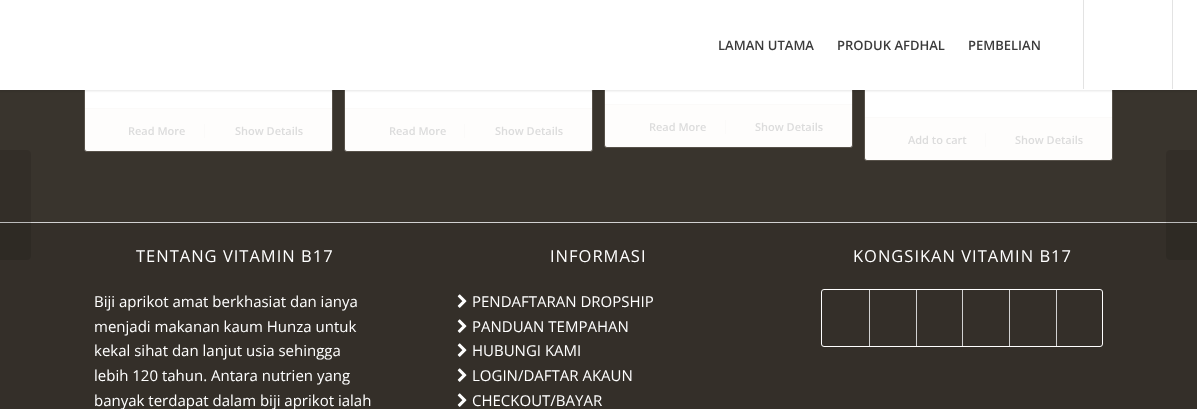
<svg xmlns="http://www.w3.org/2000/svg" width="1197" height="409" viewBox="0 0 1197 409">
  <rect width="100%" height="100%" fill="rgb(57,52,45)"/>
  <rect x="84.5" y="-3.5" width="248" height="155" rx="2.5" fill="rgb(255,255,255)" stroke="rgb(87,81,73)"/>
  <rect x="344.5" y="-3.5" width="248" height="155" rx="2.5" fill="rgb(255,255,255)" stroke="rgb(87,81,73)"/>
  <rect x="604.5" y="-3.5" width="248" height="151" rx="2.5" fill="rgb(255,255,255)" stroke="rgb(87,81,73)"/>
  <rect x="864.5" y="-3.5" width="248" height="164" rx="2.5" fill="rgb(255,255,255)" stroke="rgb(87,81,73)"/>
  <rect x="-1" y="-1" width="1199" height="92" fill="rgba(0,0,0,0.1)" filter="blur(1px)"/>
  <rect x="0" y="0" width="1197" height="90" fill="rgb(255,255,255)"/>
  <g font-family="Open Sans" font-size="13" font-weight="600" fill="rgb(59,59,59)">
    <text x="718" y="50">LAMAN UTAMA</text>
    <text x="837" y="50">PRODUK AFDHAL</text>
    <text x="968" y="50">PEMBELIAN</text>
  </g>
  <rect x="1172" y="0" width="1" height="89" fill="rgb(227,227,227)"/>
  <rect x="1083" y="0" width="1" height="89" fill="rgb(227,227,227)"/>
  <rect x="0" y="223" width="1197" height="186" fill="rgb(52,47,41)"/>
  <rect x="0" y="222" width="1197" height="1" fill="rgb(209,209,209)"/>
  <path d="M0 150H27C29 150 31 152 31 154V256C31 258 29 260 27 260H0Z" fill="rgba(0,0,0,0.1)"/>
  <path d="M85 108H332V149C332 150 331 151 330 151H87C86 151 85 150 85 149Z" fill="rgba(248,246,242,0.2)"/>
  <rect x="85" y="108" width="247" height="1" fill="rgb(251,250,249)"/>
  <text x="128" y="135" font-family="Open Sans" font-size="11" font-weight="600" fill="rgb(220,220,220)">Read More</text>
  <rect x="204" y="124" width="1" height="14" fill="rgb(251,250,249)"/>
  <text x="235" y="135" font-family="Open Sans" font-size="11" font-weight="600" fill="rgb(220,220,220)">Show Details</text>
  <path d="M345 108H592V149C592 150 591 151 590 151H347C346 151 345 150 345 149Z" fill="rgba(248,246,242,0.2)"/>
  <rect x="345" y="108" width="247" height="1" fill="rgb(251,250,249)"/>
  <text x="389" y="135" font-family="Open Sans" font-size="11" font-weight="600" fill="rgb(220,220,220)">Read More</text>
  <rect x="464" y="124" width="1" height="14" fill="rgb(251,250,249)"/>
  <text x="495" y="135" font-family="Open Sans" font-size="11" font-weight="600" fill="rgb(220,220,220)">Show Details</text>
  <path d="M605 104H852V145C852 146 851 147 850 147H607C606 147 605 146 605 145Z" fill="rgba(248,246,242,0.2)"/>
  <rect x="605" y="104" width="247" height="1" fill="rgb(251,250,249)"/>
  <text x="649" y="131" font-family="Open Sans" font-size="11" font-weight="600" fill="rgb(220,220,220)">Read More</text>
  <rect x="725" y="120" width="1" height="14" fill="rgb(251,250,249)"/>
  <text x="755" y="131" font-family="Open Sans" font-size="11" font-weight="600" fill="rgb(220,220,220)">Show Details</text>
  <path d="M865 117H1112V158C1112 159 1111 160 1110 160H867C866 160 865 159 865 158Z" fill="rgba(248,246,242,0.2)"/>
  <rect x="865" y="117" width="247" height="1" fill="rgb(251,250,249)"/>
  <text x="908" y="144" font-family="Open Sans" font-size="11" font-weight="600" fill="rgb(220,220,220)">Add to cart</text>
  <rect x="985" y="133" width="1" height="14" fill="rgb(251,250,249)"/>
  <text x="1015" y="144" font-family="Open Sans" font-size="11" font-weight="600" fill="rgb(220,220,220)">Show Details</text>
  <text x="136" y="262" font-family="Open Sans" font-size="16.5" letter-spacing="1" fill="rgb(255,255,255)">TENTANG VITAMIN B17</text>
  <g font-family="Open Sans" font-size="15" fill="rgb(255,255,255)">
    <text>
      <tspan x="94" y="307">Biji aprikot amat berkhasiat dan ianya</tspan>
      <tspan x="94" y="332">menjadi makanan kaum Hunza untuk</tspan>
      <tspan x="94" y="356">kekal sihat dan lanjut usia sehingga</tspan>
      <tspan x="94" y="381">lebih 120 tahun. Antara nutrien yang</tspan>
      <tspan x="94" y="406">banyak terdapat dalam biji aprikot ialah</tspan>
    </text>
  </g>
  <text x="550" y="262" font-family="Open Sans" font-size="16.5" letter-spacing="1" fill="rgb(255,255,255)">INFORMASI</text>
  <image x="457" y="294" width="10" height="14" href="pic1.png"/>
  <text x="472" y="307" font-family="Open Sans" font-size="15" fill="rgb(255,255,255)">PENDAFTARAN DROPSHIP</text>
  <image x="457" y="319" width="10" height="14" href="pic1.png"/>
  <text x="472" y="332" font-family="Open Sans" font-size="15" fill="rgb(255,255,255)">PANDUAN TEMPAHAN</text>
  <image x="457" y="343" width="10" height="14" href="pic1.png"/>
  <text x="472" y="356" font-family="Open Sans" font-size="15" fill="rgb(255,255,255)">HUBUNGI KAMI</text>
  <image x="457" y="368" width="10" height="14" href="pic1.png"/>
  <text x="472" y="381" font-family="Open Sans" font-size="15" fill="rgb(255,255,255)">LOGIN/DAFTAR AKAUN</text>
  <image x="457" y="393" width="10" height="14" href="pic1.png"/>
  <text x="472" y="406" font-family="Open Sans" font-size="15" fill="rgb(255,255,255)">CHECKOUT/BAYAR</text>
  <text x="853" y="262" font-family="Open Sans" font-size="16.5" letter-spacing="1" fill="rgb(255,255,255)">KONGSIKAN VITAMIN B17</text>
  <rect x="821.5" y="289.5" width="281" height="57" rx="2.5" fill="none" stroke="rgb(255,255,255)"/>
  <rect x="869" y="290" width="1" height="56" fill="rgb(209,209,209)"/>
  <rect x="916" y="290" width="1" height="56" fill="rgb(209,209,209)"/>
  <rect x="962" y="290" width="1" height="56" fill="rgb(209,209,209)"/>
  <rect x="1009" y="290" width="1" height="56" fill="rgb(209,209,209)"/>
  <rect x="1056" y="290" width="1" height="56" fill="rgb(209,209,209)"/>
  <path d="M1170 150H1197V260H1170C1168 260 1166 258 1166 256V154C1166 152 1168 150 1170 150Z" fill="rgba(0,0,0,0.1)"/>
</svg>
